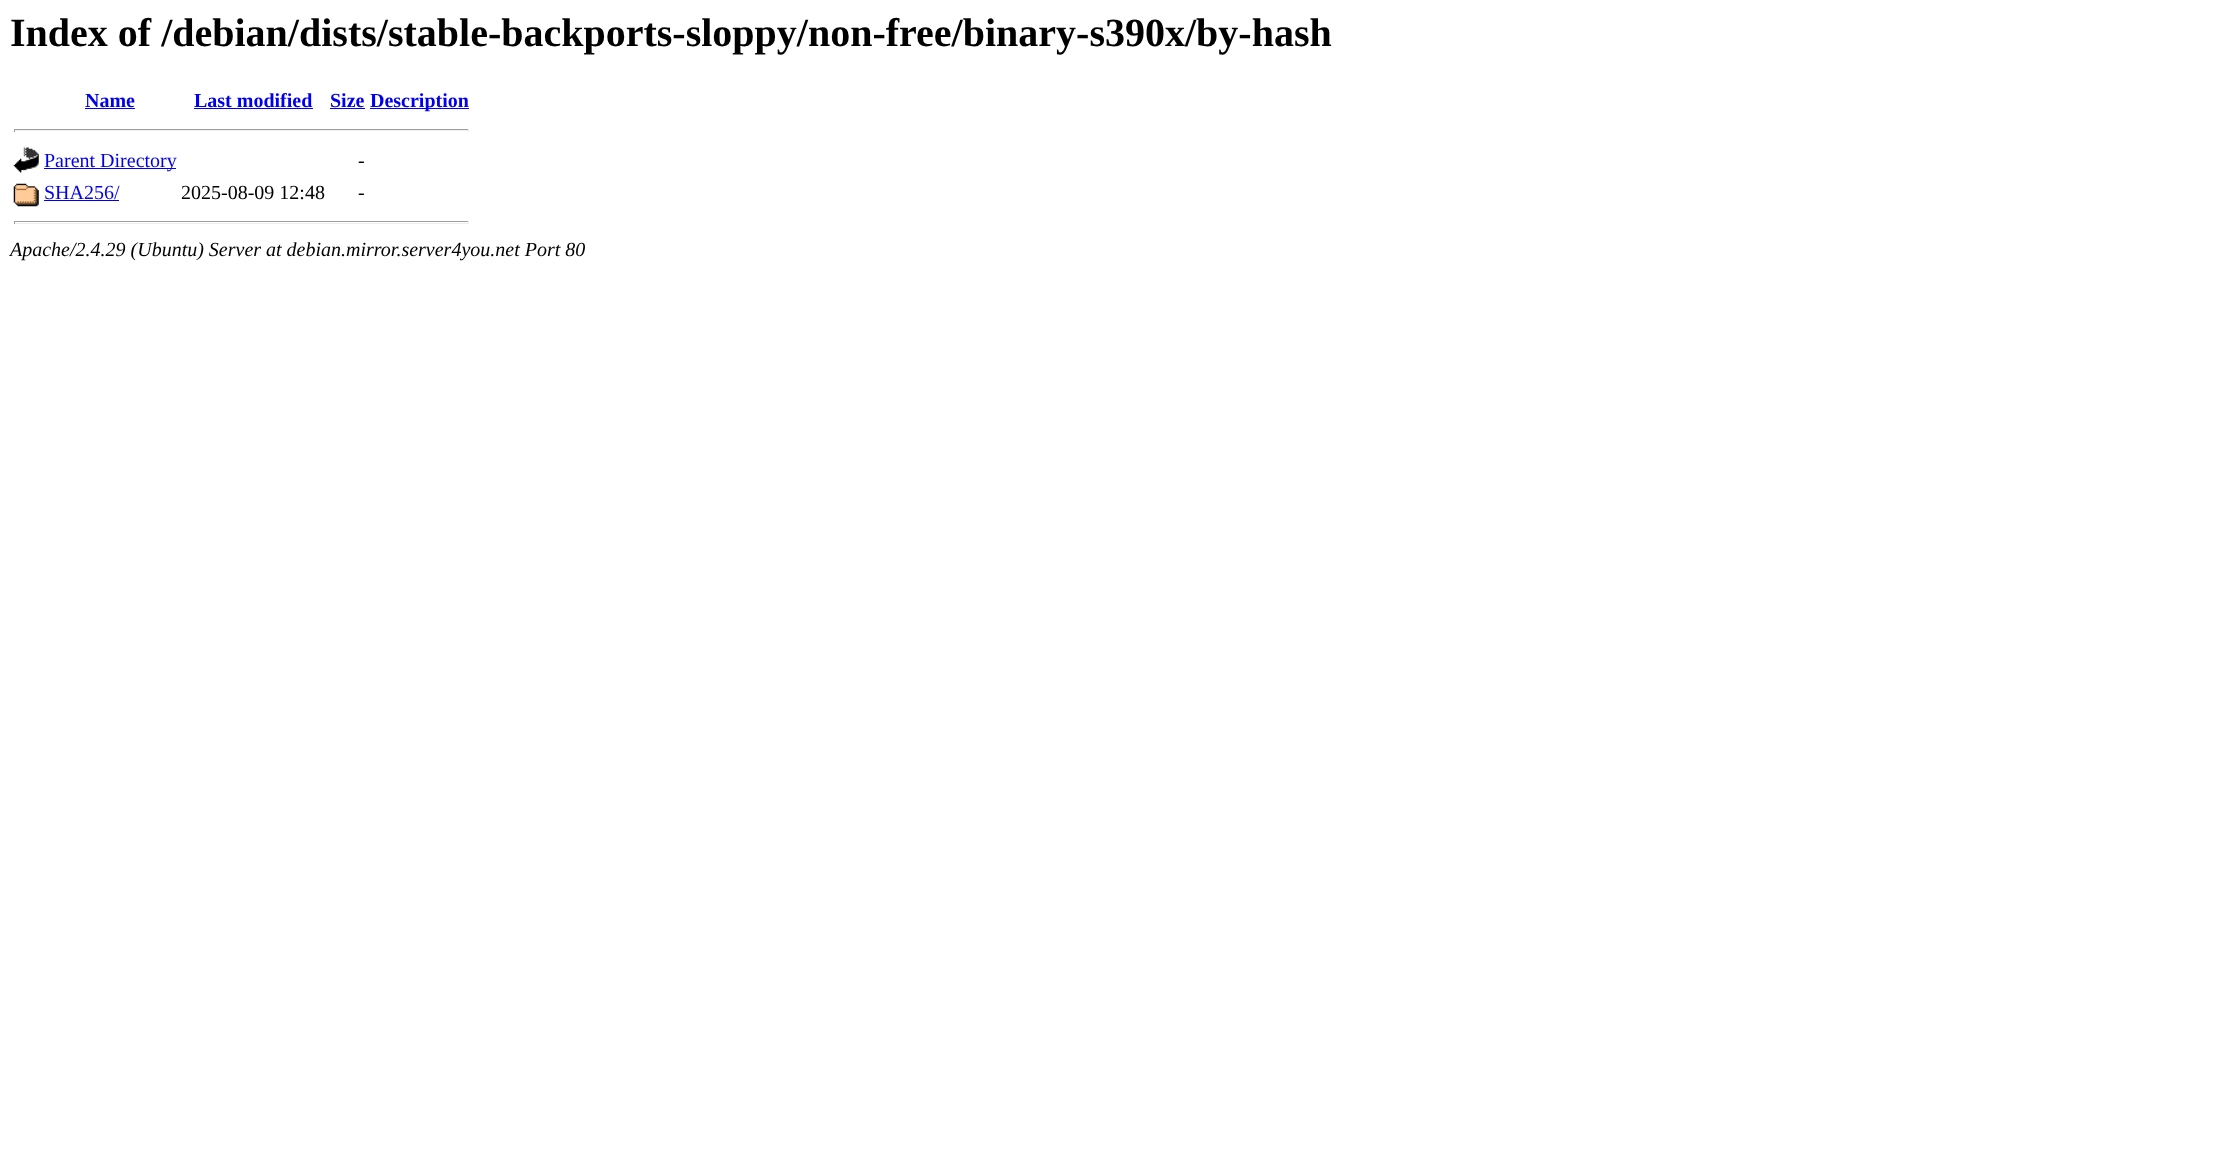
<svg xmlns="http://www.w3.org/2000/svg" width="2233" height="1170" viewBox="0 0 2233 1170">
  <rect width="100%" height="100%" fill="rgb(255,255,255)"/>
  <text x="10" y="46" font-family="Liberation Serif" font-size="40" font-weight="bold" fill="rgb(0,0,0)">Index of /debian/dists/stable-backports-sloppy/non-free/binary-s390x/by-hash</text>
  <text x="85" y="107" font-family="Liberation Serif" font-size="20" font-weight="bold" fill="rgb(0,0,238)">Name</text>
  <rect x="85" y="108" width="50" height="1" fill="rgb(0,0,238)"/>
  <text x="194" y="107" font-family="Liberation Serif" font-size="20" font-weight="bold" fill="rgb(0,0,238)">Last modified</text>
  <rect x="194" y="108" width="119" height="1" fill="rgb(0,0,238)"/>
  <text x="330" y="107" font-family="Liberation Serif" font-size="20" font-weight="bold" fill="rgb(0,0,238)">Size</text>
  <rect x="330" y="108" width="35" height="1" fill="rgb(0,0,238)"/>
  <rect x="370" y="108" width="99" height="1" fill="rgb(0,0,238)"/>
  <text x="370" y="107" font-family="Liberation Serif" font-size="20" font-weight="bold" fill="rgb(0,0,238)">Description</text>
  <rect x="14" y="129" width="455" height="1" fill="rgb(159,159,159)"/>
  <rect x="468" y="129" width="1" height="3" fill="rgb(238,238,238)"/>
  <rect x="14" y="130" width="455" height="1" fill="rgb(238,238,238)"/>
  <rect x="14" y="129" width="1" height="3" fill="rgb(159,159,159)"/>
  <image x="13" y="147" width="26" height="26" href="pic1.png"/>
  <rect x="44" y="168" width="132" height="1" fill="rgb(0,0,238)"/>
  <text x="44" y="167" font-family="Liberation Serif" font-size="20" fill="rgb(0,0,238)">Parent Directory</text>
  <text x="358" y="167" font-family="Liberation Serif" font-size="20" fill="rgb(0,0,0)">-</text>
  <image x="13" y="183" width="26" height="24" href="pic2.png"/>
  <text x="44" y="199" font-family="Liberation Serif" font-size="20" fill="rgb(0,0,238)">SHA256/</text>
  <rect x="44" y="200" width="75" height="1" fill="rgb(0,0,238)"/>
  <g font-family="Liberation Serif" font-size="20" fill="rgb(0,0,0)">
    <text x="181" y="199">2025-08-09 12:48</text>
    <text x="358" y="199">-</text>
  </g>
  <rect x="14" y="221" width="455" height="1" fill="rgb(159,159,159)"/>
  <rect x="468" y="221" width="1" height="3" fill="rgb(238,238,238)"/>
  <rect x="14" y="223" width="455" height="1" fill="rgb(238,238,238)"/>
  <rect x="14" y="221" width="1" height="3" fill="rgb(159,159,159)"/>
  <text x="10" y="256" font-family="Liberation Serif" font-size="20" font-style="italic" fill="rgb(0,0,0)">Apache/2.4.29 (Ubuntu) Server at debian.mirror.server4you.net Port 80</text>
</svg>
